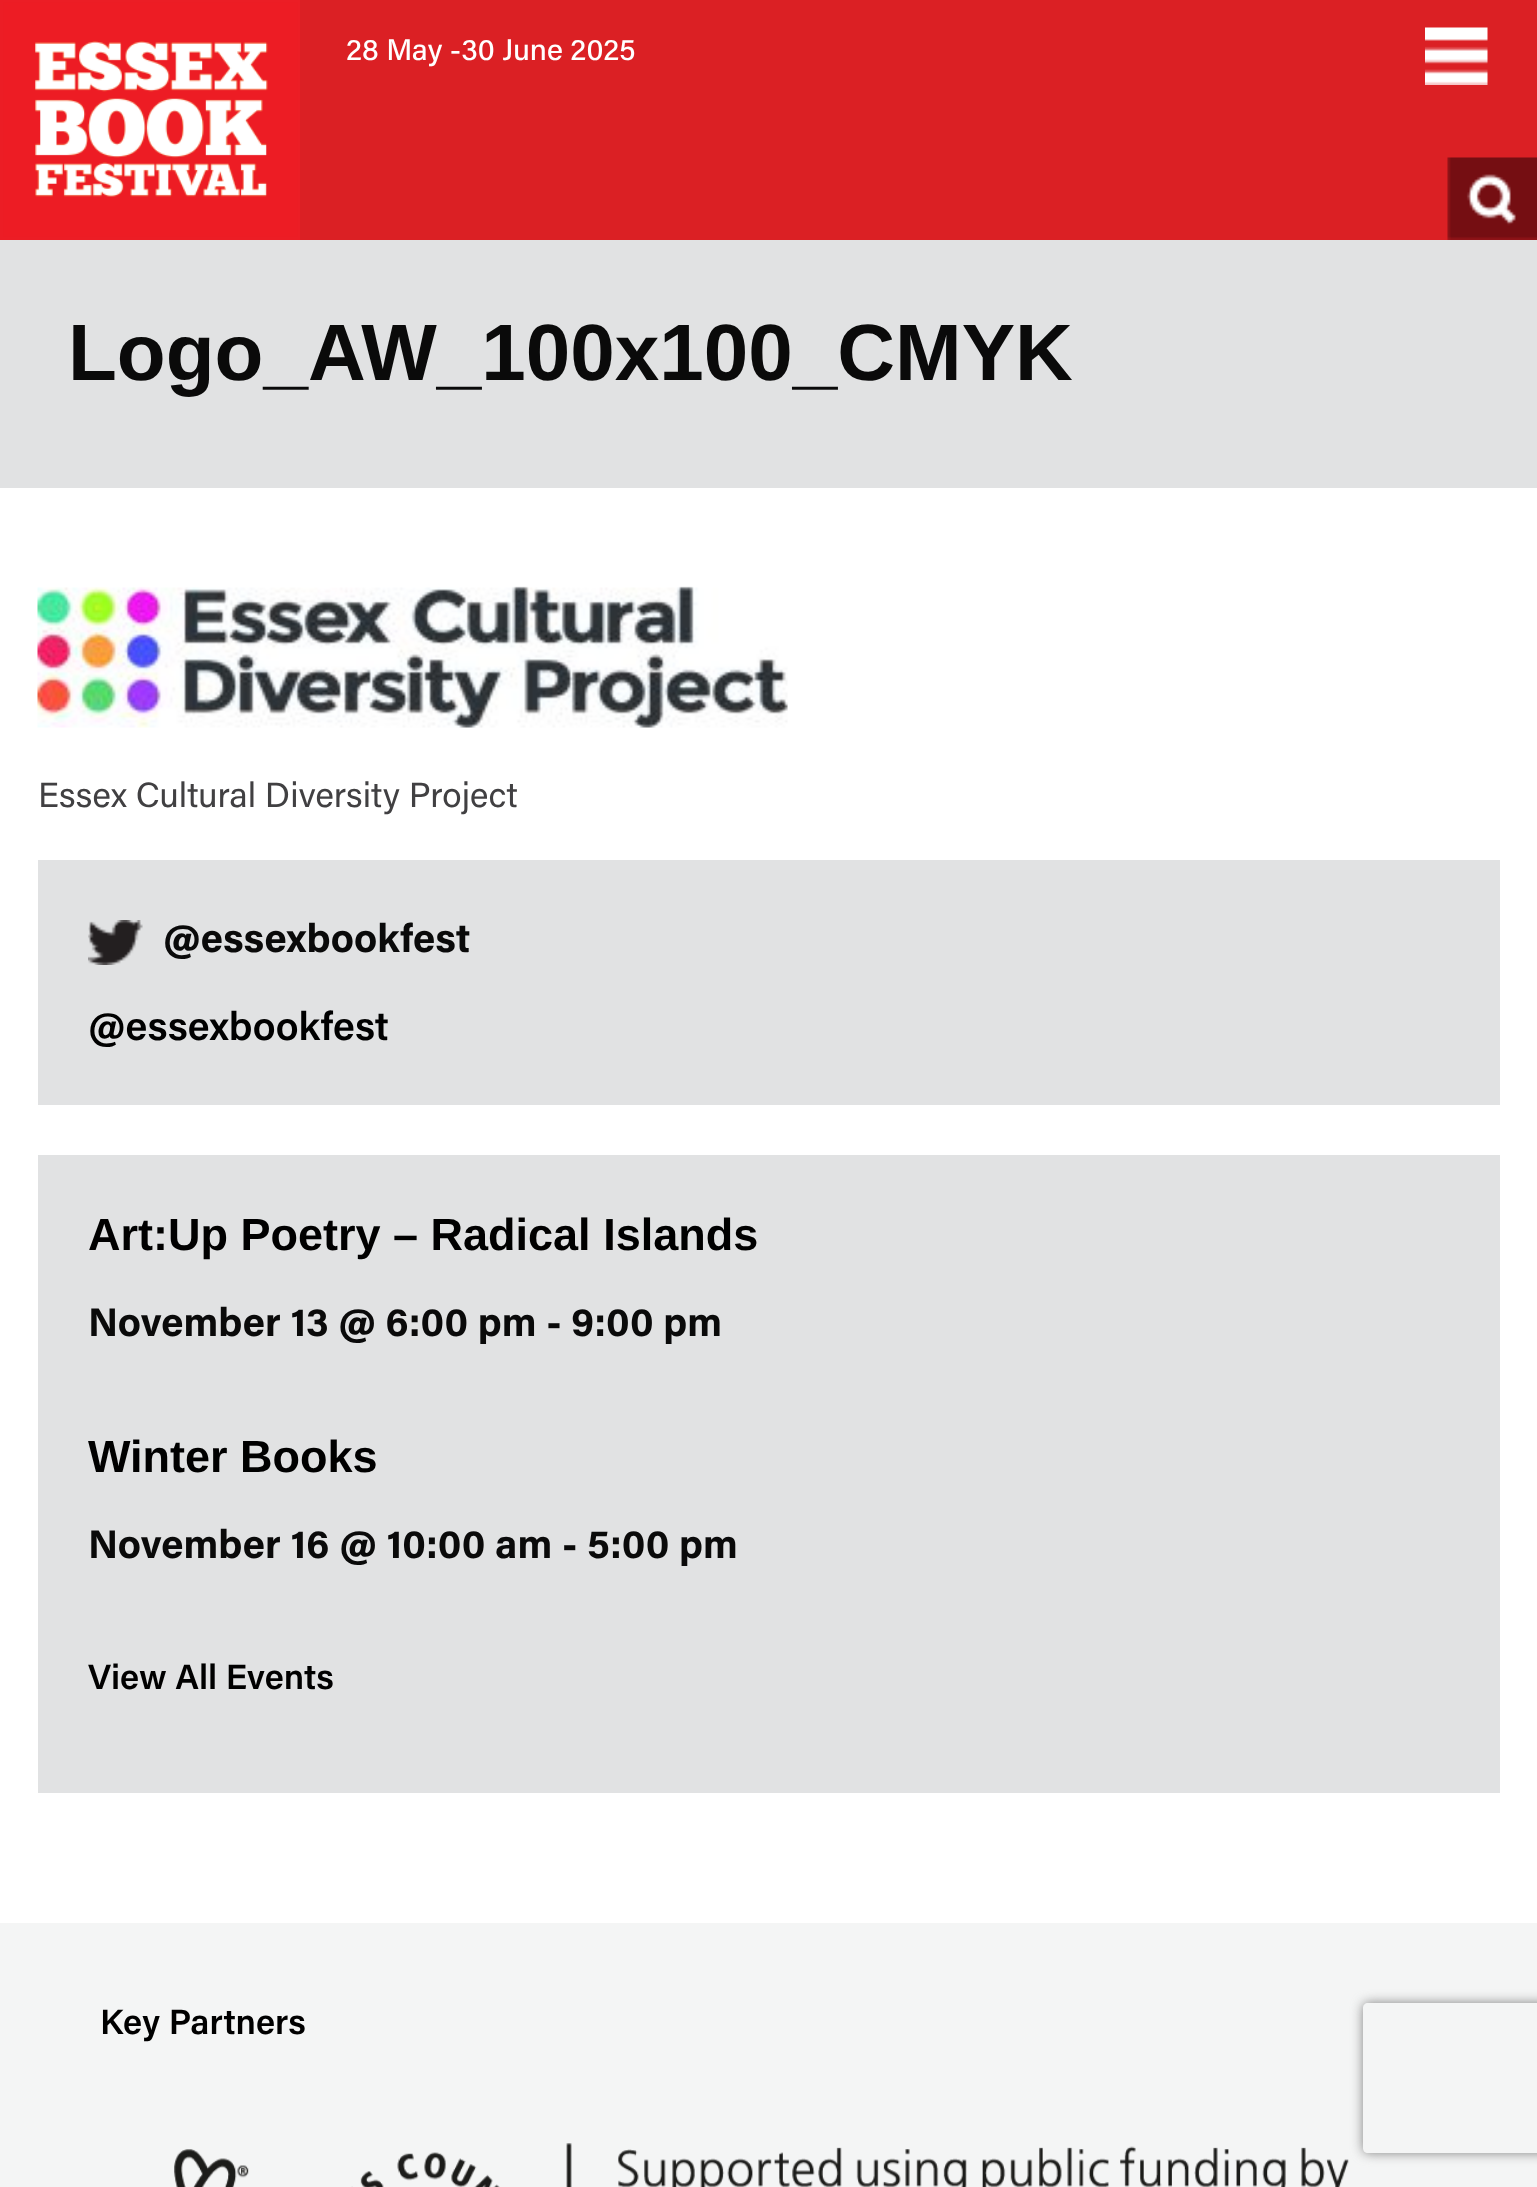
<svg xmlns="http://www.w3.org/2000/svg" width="1537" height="2187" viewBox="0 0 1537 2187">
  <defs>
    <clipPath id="clip1"><path d="M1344 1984H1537V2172H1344ZM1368 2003H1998C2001 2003 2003 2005 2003 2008V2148C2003 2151 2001 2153 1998 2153H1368C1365 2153 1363 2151 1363 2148V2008C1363 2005 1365 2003 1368 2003Z" clip-rule="evenodd"/></clipPath>
  </defs>
  <rect width="100%" height="100%" fill="rgb(255,255,255)"/>
  <rect x="300" y="0" width="1237" height="240" fill="rgb(219,32,36)"/>
  <image x="0" y="0" width="300" height="240" href="pic1.png"/>
  <text x="346" y="60" font-family="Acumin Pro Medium" font-size="30" font-weight="500" fill="rgb(255,255,255)">28 May -30 June 2025</text>
  <image x="1425" y="27" width="63" height="58" href="pic2.png"/>
  <image x="1447" y="157" width="90" height="83" href="pic3.png"/>
  <rect x="0" y="240" width="1537" height="248" fill="rgb(225,226,227)"/>
  <text x="68" y="380" font-family="Liberation Sans" font-size="80" font-weight="bold" fill="rgb(10,10,10)">Logo_AW_100x100_CMYK</text>
  <image x="37" y="586" width="751" height="142" href="pic4.png"/>
  <text x="38" y="807" font-family="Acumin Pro" font-size="35" fill="rgb(65,64,66)">Essex Cultural Diversity Project</text>
  <rect x="38" y="860" width="1462" height="245" fill="rgb(225,226,227)"/>
  <image x="88" y="920" width="55" height="45" href="pic5.png"/>
  <text x="163" y="952" font-family="Acumin Pro" font-size="40" font-weight="bold" fill="rgb(10,10,10)">@essexbookfest</text>
  <text x="88" y="1040" font-family="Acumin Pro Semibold" font-size="40" font-weight="600" fill="rgb(0,0,0)">@essexbookfest</text>
  <rect x="38" y="1155" width="1462" height="638" fill="rgb(225,226,227)"/>
  <text x="88" y="1250" font-family="Liberation Sans" font-size="45" font-weight="bold" fill="rgb(0,0,0)">Art:Up Poetry – Radical Islands</text>
  <text x="88" y="1336" font-family="Acumin Pro" font-size="40" font-weight="bold" fill="rgb(10,10,10)">November 13 @ 6:00 pm - 9:00 pm</text>
  <text x="88" y="1472" font-family="Liberation Sans" font-size="45" font-weight="bold" fill="rgb(0,0,0)">Winter Books</text>
  <text x="88" y="1558" font-family="Acumin Pro" font-size="40" font-weight="bold" fill="rgb(10,10,10)">November 16 @ 10:00 am - 5:00 pm</text>
  <text x="88" y="1689" font-family="Acumin Pro Semibold" font-size="35" font-weight="600" fill="rgb(0,0,0)">View All Events</text>
  <rect x="0" y="1923" width="1537" height="264" fill="rgb(244,245,245)"/>
  <text x="100" y="2034" font-family="Acumin Pro Semibold" font-size="35" font-weight="600" fill="rgb(0,0,0)">Key Partners</text>
  <image x="174" y="2143" width="1175" height="44" href="pic6.png"/>
  <g clip-path="url(#clip1)">
    <rect x="1363" y="2003" width="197" height="150" rx="5" fill="rgb(128,128,128)" filter="blur(6px)"/>
  </g>
</svg>
